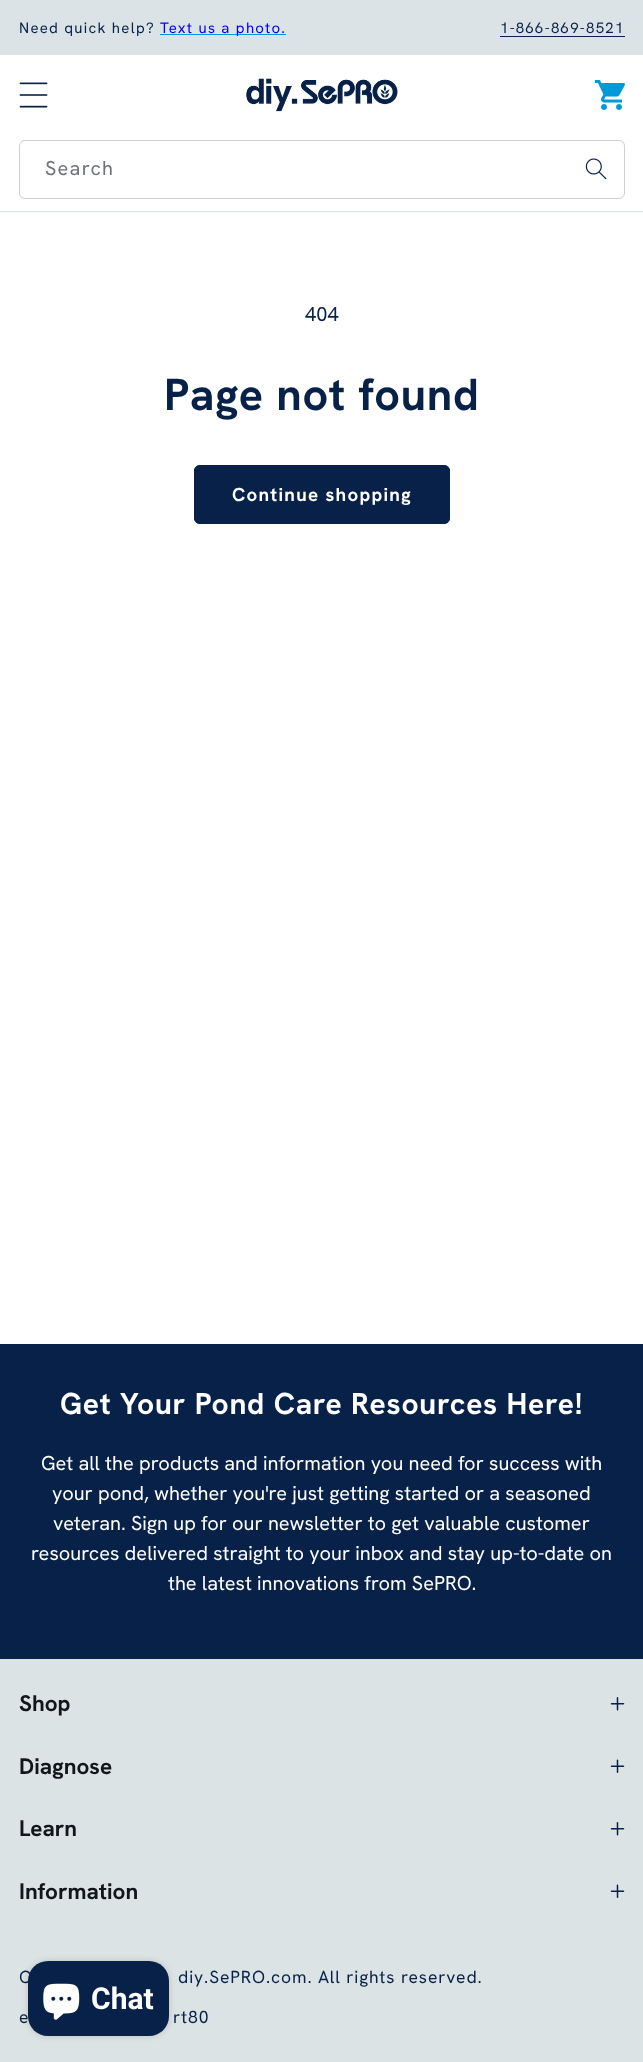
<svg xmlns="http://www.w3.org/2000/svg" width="643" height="2062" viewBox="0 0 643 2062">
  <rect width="100%" height="100%" fill="rgb(255,255,255)"/>
  <rect x="0" y="0" width="643" height="55" fill="rgb(219,227,230)"/>
  <text x="19" y="33" font-family="Hanken Grotesk" font-size="15" letter-spacing="1.25" fill="rgb(7,33,72)">Need quick help?</text>
  <rect x="160" y="34" width="126" height="1" fill="rgb(0,154,216)"/>
  <text x="160" y="33" font-family="Hanken Grotesk" font-size="15" letter-spacing="1.25" fill="rgb(0,0,238)">Text us a photo.</text>
  <text x="500" y="33" font-family="Hanken Grotesk" font-size="15" letter-spacing="1.25" fill="rgb(7,33,72)">1-866-869-8521</text>
  <rect x="500" y="36" width="125" height="1" fill="rgb(7,33,72)"/>
  <rect x="0" y="211" width="643" height="1" fill="rgb(219,227,229)"/>
  <image x="19" y="82" width="29" height="26" href="pic1.png"/>
  <image x="246" y="78" width="152" height="34" href="pic2.png"/>
  <image x="595" y="80" width="30" height="30" href="pic3.png"/>
  <image x="585" y="158" width="22" height="22" href="pic4.png"/>
  <rect x="19.5" y="140.5" width="605" height="58" rx="5.5" fill="none" stroke="rgb(202,208,211)"/>
  <text x="45" y="175" font-family="Hanken Grotesk" font-size="20" letter-spacing="1.25" fill="rgb(110,115,122)">Search</text>
  <text x="305" y="321" font-family="Hanken Grotesk" font-size="20" fill="rgb(7,33,72)">404</text>
  <text x="164" y="410" font-family="Hanken Grotesk" font-size="45" font-weight="bold" letter-spacing="0.75" fill="rgb(7,33,72)">Page not found</text>
  <rect x="194" y="465" width="256" height="59" rx="6" fill="rgb(7,33,72)"/>
  <rect x="194.5" y="465.5" width="255" height="58" rx="5.5" fill="none" stroke="rgb(7,33,72)"/>
  <text x="232" y="501" font-family="Hanken Grotesk" font-size="18.75" font-weight="bold" letter-spacing="1.25" fill="rgb(255,255,255)">Continue shopping</text>
  <rect x="0" y="1659" width="643" height="403" fill="rgb(219,227,229)"/>
  <rect x="0" y="1344" width="643" height="315" fill="rgb(7,33,72)"/>
  <text x="60" y="1414" font-family="Hanken Grotesk" font-size="30" font-weight="bold" letter-spacing="0.75" fill="rgb(255,255,255)">Get Your Pond Care Resources Here!</text>
  <g font-family="Hanken Grotesk" font-size="20" fill="rgb(255,255,255)">
    <text x="41" y="1470">Get all the products and information you need for success with</text>
    <text x="52" y="1500">your pond, whether you're just getting started or a seasoned</text>
    <text x="53" y="1530">veteran. Sign up for our newsletter to get valuable customer</text>
    <text x="31" y="1560">resources delivered straight to your inbox and stay up-to-date on</text>
    <text x="168" y="1590">the latest innovations from SePRO.</text>
  </g>
  <text x="19" y="1711" font-family="Hanken Grotesk" font-size="22.5" font-weight="bold" fill="rgb(18,21,26)">Shop</text>
  <image x="610" y="1697" width="15" height="14" href="pic5.png"/>
  <text x="19" y="1774" font-family="Hanken Grotesk" font-size="22.5" font-weight="bold" fill="rgb(18,21,26)">Diagnose</text>
  <image x="610" y="1759" width="15" height="14" href="pic6.png"/>
  <text x="19" y="1836" font-family="Hanken Grotesk" font-size="22.5" font-weight="bold" fill="rgb(18,21,26)">Learn</text>
  <image x="610" y="1822" width="15" height="14" href="pic5.png"/>
  <text x="19" y="1899" font-family="Hanken Grotesk" font-size="22.5" font-weight="bold" fill="rgb(18,21,26)">Information</text>
  <image x="610" y="1884" width="15" height="14" href="pic6.png"/>
  <g font-family="Hanken Grotesk" font-size="17.5" letter-spacing="0.9" fill="rgb(7,33,72)">
    <text x="19" y="1983">C</text>
    <text x="178" y="1983">diy.SePRO.com. All rights reserved.</text>
    <text x="19" y="2023">e</text>
    <text x="173" y="2023">rt80</text>
  </g>
  <rect x="28" y="1961" width="141" height="75" rx="20" fill="rgba(0,0,0,0.15)" filter="blur(3px)"/>
  <rect x="28" y="1961" width="141" height="75" rx="20" fill="rgb(7,33,72)"/>
  <image x="43" y="1983" width="37" height="37" href="pic7.png"/>
  <text x="91" y="2009" font-family="Roboto" font-size="30" font-weight="bold" fill="rgb(255,255,255)">Chat</text>
</svg>
